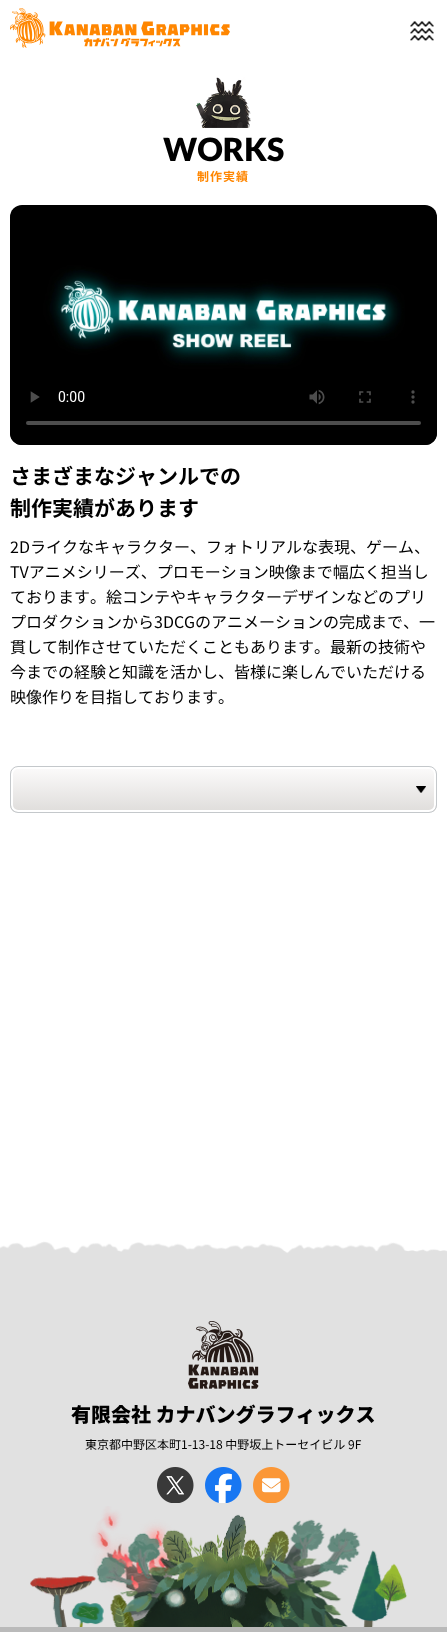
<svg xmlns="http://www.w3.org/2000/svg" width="447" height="1632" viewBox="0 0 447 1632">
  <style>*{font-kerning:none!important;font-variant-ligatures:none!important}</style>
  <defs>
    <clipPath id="clip1"><rect x="10" y="766" width="427" height="47" rx="8"/></clipPath>
    <linearGradient id="g1" gradientUnits="userSpaceOnUse" x1="224" y1="812" x2="224" y2="767"><stop offset="0" stop-color="rgb(223,221,219)"/><stop offset="1" stop-color="rgb(252,251,251)"/></linearGradient>
  </defs>
  <rect width="100%" height="100%" fill="rgb(255,255,255)"/>
  <image x="10" y="8" width="220" height="40" href="pic1.png"/>
  <image x="410" y="21" width="24" height="20" href="pic2.png"/>
  <image x="196" y="77" width="55" height="51" href="pic3.png"/>
  <text x="163" y="161" font-family="Lato" font-size="32" font-weight="900" fill="rgb(0,0,0)">WORKS</text>
  <text x="197" y="181" font-family="Noto Sans JP" font-size="12" font-weight="bold" letter-spacing="1" fill="rgb(255,134,0)">制作実績</text>
  <image x="10" y="205" width="427" height="240" href="pic4.png"/>
  <g font-family="Noto Sans JP" font-size="21" font-weight="bold" fill="rgb(0,0,0)">
    <text>
      <tspan x="10" y="484">さまざまなジャンルでの</tspan>
      <tspan x="10" y="516">制作実績があります</tspan>
    </text>
  </g>
  <g font-family="Noto Sans JP" font-size="16" fill="rgb(0,0,0)">
    <text>
      <tspan x="10" y="553">2Dライクなキャラクター、フォトリアルな表現、ゲーム、</tspan>
      <tspan x="10" y="578">TVアニメシリーズ、プロモーション映像まで幅広く担当し</tspan>
      <tspan x="10" y="603">ております。絵コンテやキャラクターデザインなどのプリ</tspan>
      <tspan x="10" y="628">プロダクションから3DCGのアニメーションの完成まで、一</tspan>
      <tspan x="10" y="653">貫して制作させていただくこともあります。最新の技術や</tspan>
      <tspan x="10" y="678">今までの経験と知識を活かし、皆様に楽しんでいただける</tspan>
      <tspan x="10" y="703">映像作りを目指しております。</tspan>
    </text>
  </g>
  <g clip-path="url(#clip1)">
    <rect x="10" y="767" width="427" height="45" fill="url(#g1)"/>
  </g>
  <rect x="12" y="768" width="423" height="43" rx="6" fill="none" stroke="rgb(255,255,255)" stroke-width="2"/>
  <rect x="10.5" y="766.5" width="426" height="46" rx="7.5" fill="none" stroke="rgb(196,200,203)"/>
  <image x="416" y="786" width="10" height="7" href="pic5.png"/>
  <rect x="0" y="1261" width="447" height="366" fill="rgb(225,225,225)"/>
  <image x="0" y="1241" width="447" height="20" href="pic6.png"/>
  <image x="188" y="1321" width="71" height="68" href="pic7.png"/>
  <text x="71" y="1422" font-family="Noto Sans JP" font-size="20" font-weight="900" fill="rgb(0,0,0)">有限会社 カナバングラフィックス</text>
  <text x="85" y="1449" font-family="Noto Sans JP" font-size="12" fill="rgb(0,0,0)">東京都中野区本町1-13-18 中野坂上トーセイビル 9F</text>
  <image x="157" y="1467" width="37" height="36" href="pic8.png"/>
  <image x="205" y="1467" width="37" height="36" href="pic9.png"/>
  <image x="253" y="1467" width="37" height="36" href="pic10.png"/>
  <image x="30" y="1506" width="377" height="121" href="pic11.png"/>
  <rect x="0" y="1627" width="447" height="5" fill="rgb(186,186,186)"/>
</svg>
